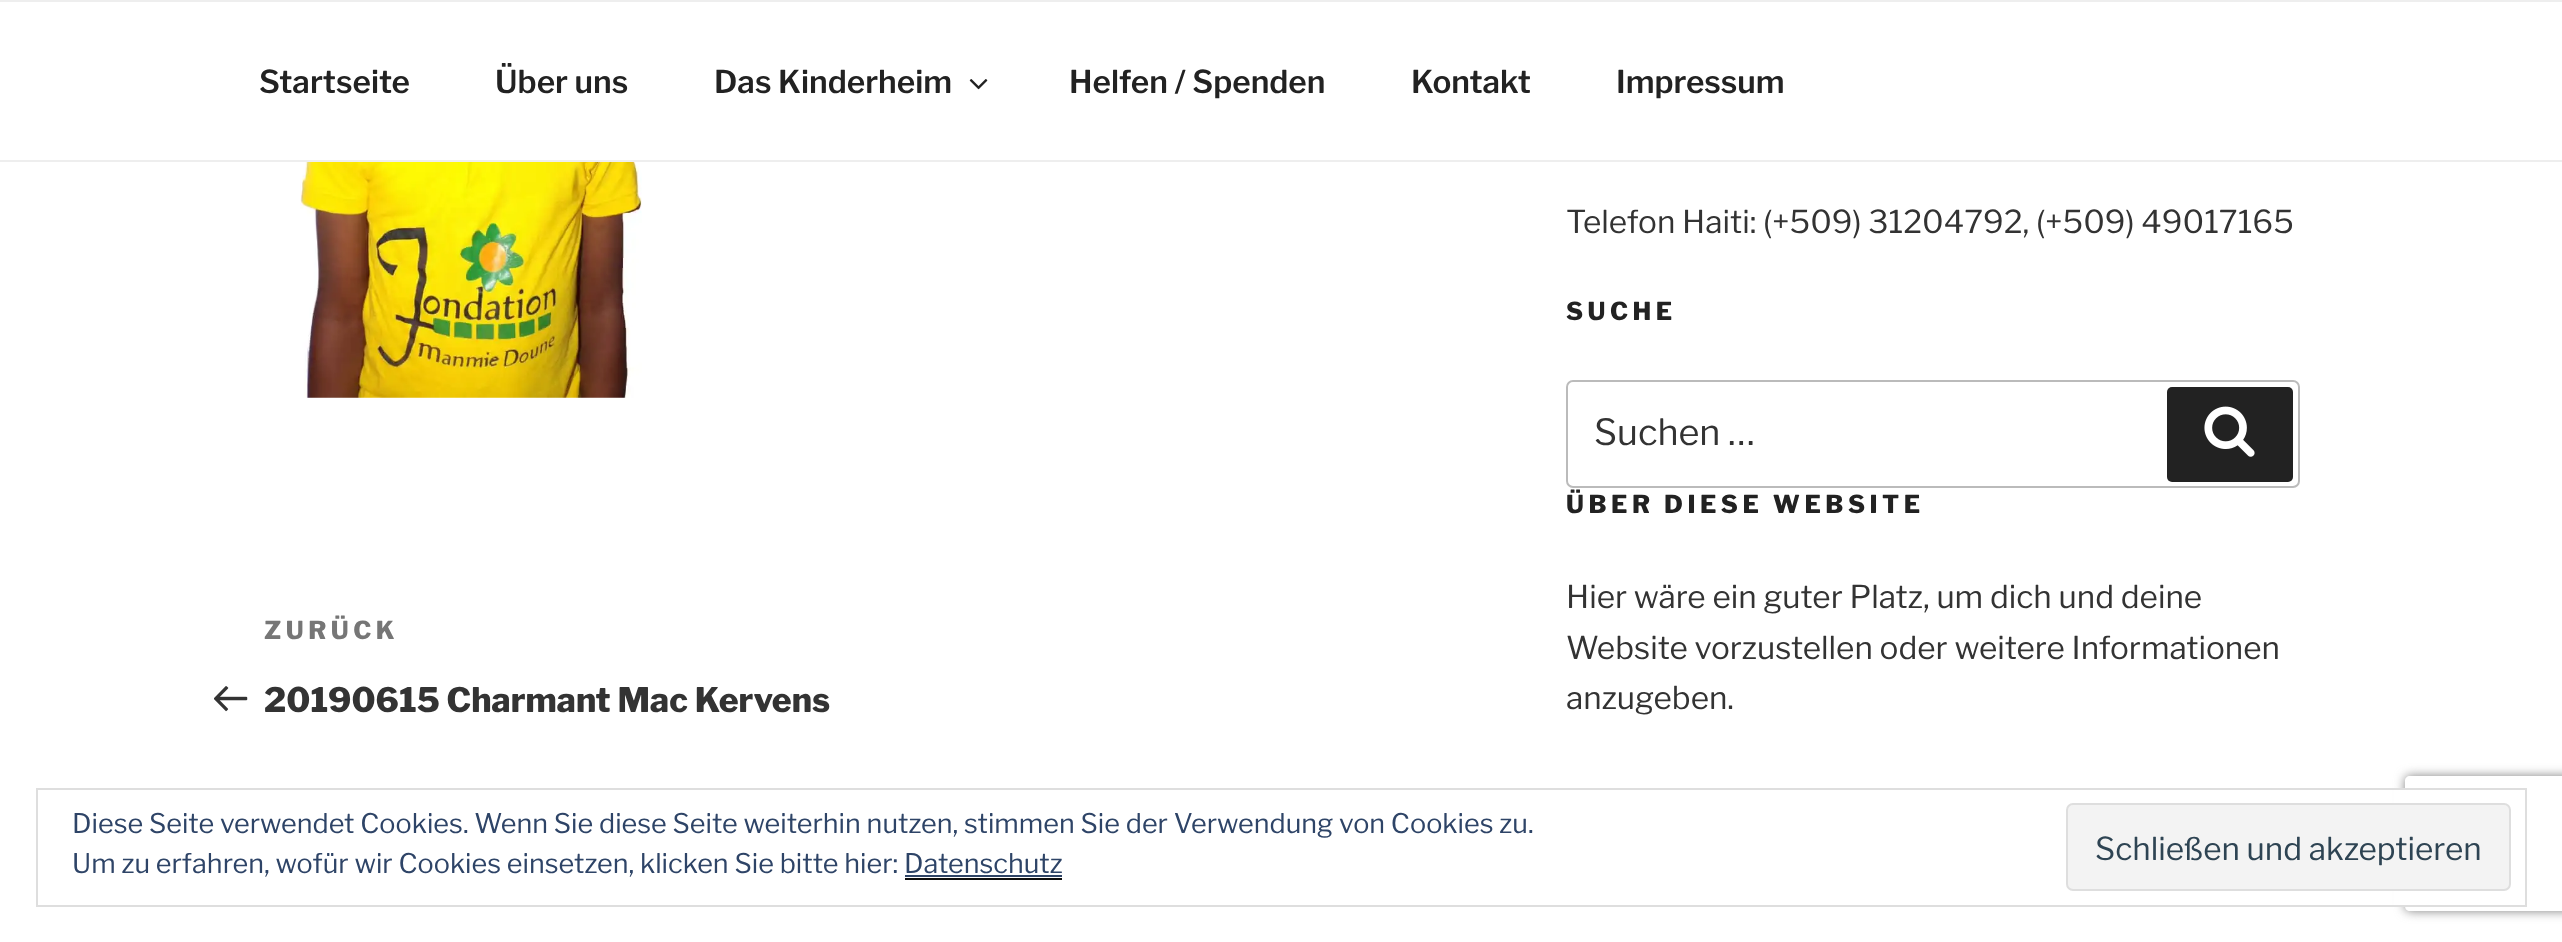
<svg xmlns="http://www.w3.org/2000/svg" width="2562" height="942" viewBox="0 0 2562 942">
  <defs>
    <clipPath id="clip1"><path d="M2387 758H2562V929H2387ZM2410 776H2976C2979 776 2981 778 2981 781V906C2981 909 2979 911 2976 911H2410C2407 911 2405 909 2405 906V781C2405 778 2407 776 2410 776Z" clip-rule="evenodd"/></clipPath>
  </defs>
  <rect width="100%" height="100%" fill="rgb(255,255,255)"/>
  <rect x="0" y="0" width="2562" height="2" fill="rgb(238,238,238)"/>
  <rect x="0" y="160" width="2562" height="2" fill="rgb(238,238,238)"/>
  <g font-family="'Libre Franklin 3'" font-size="31.5" font-weight="100" fill="rgb(34,34,34)">
    <text x="259" y="93">Startseite</text>
    <text x="495" y="93">Über uns</text>
    <text x="714" y="93">Das Kinderheim</text>
  </g>
  <image x="969" y="79" width="19" height="11" href="pic1.png"/>
  <g font-family="'Libre Franklin 3'" font-size="31.5" font-weight="100" fill="rgb(34,34,34)">
    <text x="1069" y="93">Helfen / Spenden</text>
    <text x="1411" y="93">Kontakt</text>
    <text x="1616" y="93">Impressum</text>
  </g>
  <image x="300" y="162" width="342" height="236" href="pic2.png"/>
  <text x="264" y="639" font-family="Libre Franklin" font-size="24.75" font-weight="100" letter-spacing="4.5" fill="rgb(118,118,118)">ZURÜCK</text>
  <image x="214" y="686" width="34" height="26" href="pic3.png"/>
  <text x="264" y="712" font-family="Libre Franklin" font-size="33.75" font-weight="100" fill="rgb(51,51,51)">20190615 Charmant Mac Kervens</text>
  <text x="1566" y="233" font-family="'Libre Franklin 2'" font-size="31.5" font-weight="100" fill="rgb(51,51,51)">Telefon Haiti: (+509) 31204792, (+509) 49017165</text>
  <text x="1566" y="320" font-family="Libre Franklin" font-size="24.75" font-weight="100" letter-spacing="4.5" fill="rgb(34,34,34)">SUCHE</text>
  <rect x="1567" y="381" width="732" height="106" rx="6" fill="none" stroke="rgb(187,187,187)" stroke-width="2"/>
  <text x="1594" y="445" font-family="'Libre Franklin 2'" font-size="36" font-weight="100" fill="rgb(51,51,51)">Suchen …</text>
  <rect x="2167" y="387" width="126" height="95" rx="5" fill="rgb(34,34,34)"/>
  <image x="2204" y="406" width="51" height="51" href="pic4.png"/>
  <text x="1566" y="513" font-family="Libre Franklin" font-size="24.75" font-weight="100" letter-spacing="4.5" fill="rgb(34,34,34)">ÜBER DIESE WEBSITE</text>
  <g font-family="'Libre Franklin 2'" font-size="31.5" font-weight="100" fill="rgb(51,51,51)">
    <text>
      <tspan x="1566" y="608">Hier wäre ein guter Platz, um dich und deine</tspan>
      <tspan x="1566" y="659">Website vorzustellen oder weitere Informationen</tspan>
      <tspan x="1566" y="709">anzugeben.</tspan>
    </text>
  </g>
  <g clip-path="url(#clip1)">
    <rect x="2405" y="776" width="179" height="135" rx="5" fill="rgb(128,128,128)" filter="blur(5.5px)"/>
  </g>
  <rect x="2394" y="790" width="12" height="115" fill="rgb(255,255,255)"/>
  <rect x="37" y="789" width="2489" height="117" fill="none" stroke="rgb(222,222,222)" stroke-width="2"/>
  <g font-family="'Libre Franklin 2'" font-size="27" font-weight="100" fill="rgb(46,68,103)">
    <text>
      <tspan x="72" y="833">Diese Seite verwendet Cookies. Wenn Sie diese Seite weiterhin nutzen, stimmen Sie der Verwendung von Cookies zu.</tspan>
      <tspan x="72" y="873">Um zu erfahren, wofür wir Cookies einsetzen, klicken Sie bitte hier: Datenschutz</tspan>
    </text>
  </g>
  <rect x="2067" y="804" width="443" height="86" rx="6" fill="rgb(243,243,243)" stroke="rgb(222,222,222)" stroke-width="2"/>
  <text x="2095" y="860" font-family="'Libre Franklin 2'" font-size="31.5" font-weight="100" fill="rgb(46,68,83)">Schließen und akzeptieren</text>
  <rect x="905" y="875" width="157" height="2" fill="rgb(46,68,103)"/>
  <rect x="905" y="878" width="157" height="2" fill="rgb(15,15,15)"/>
</svg>
